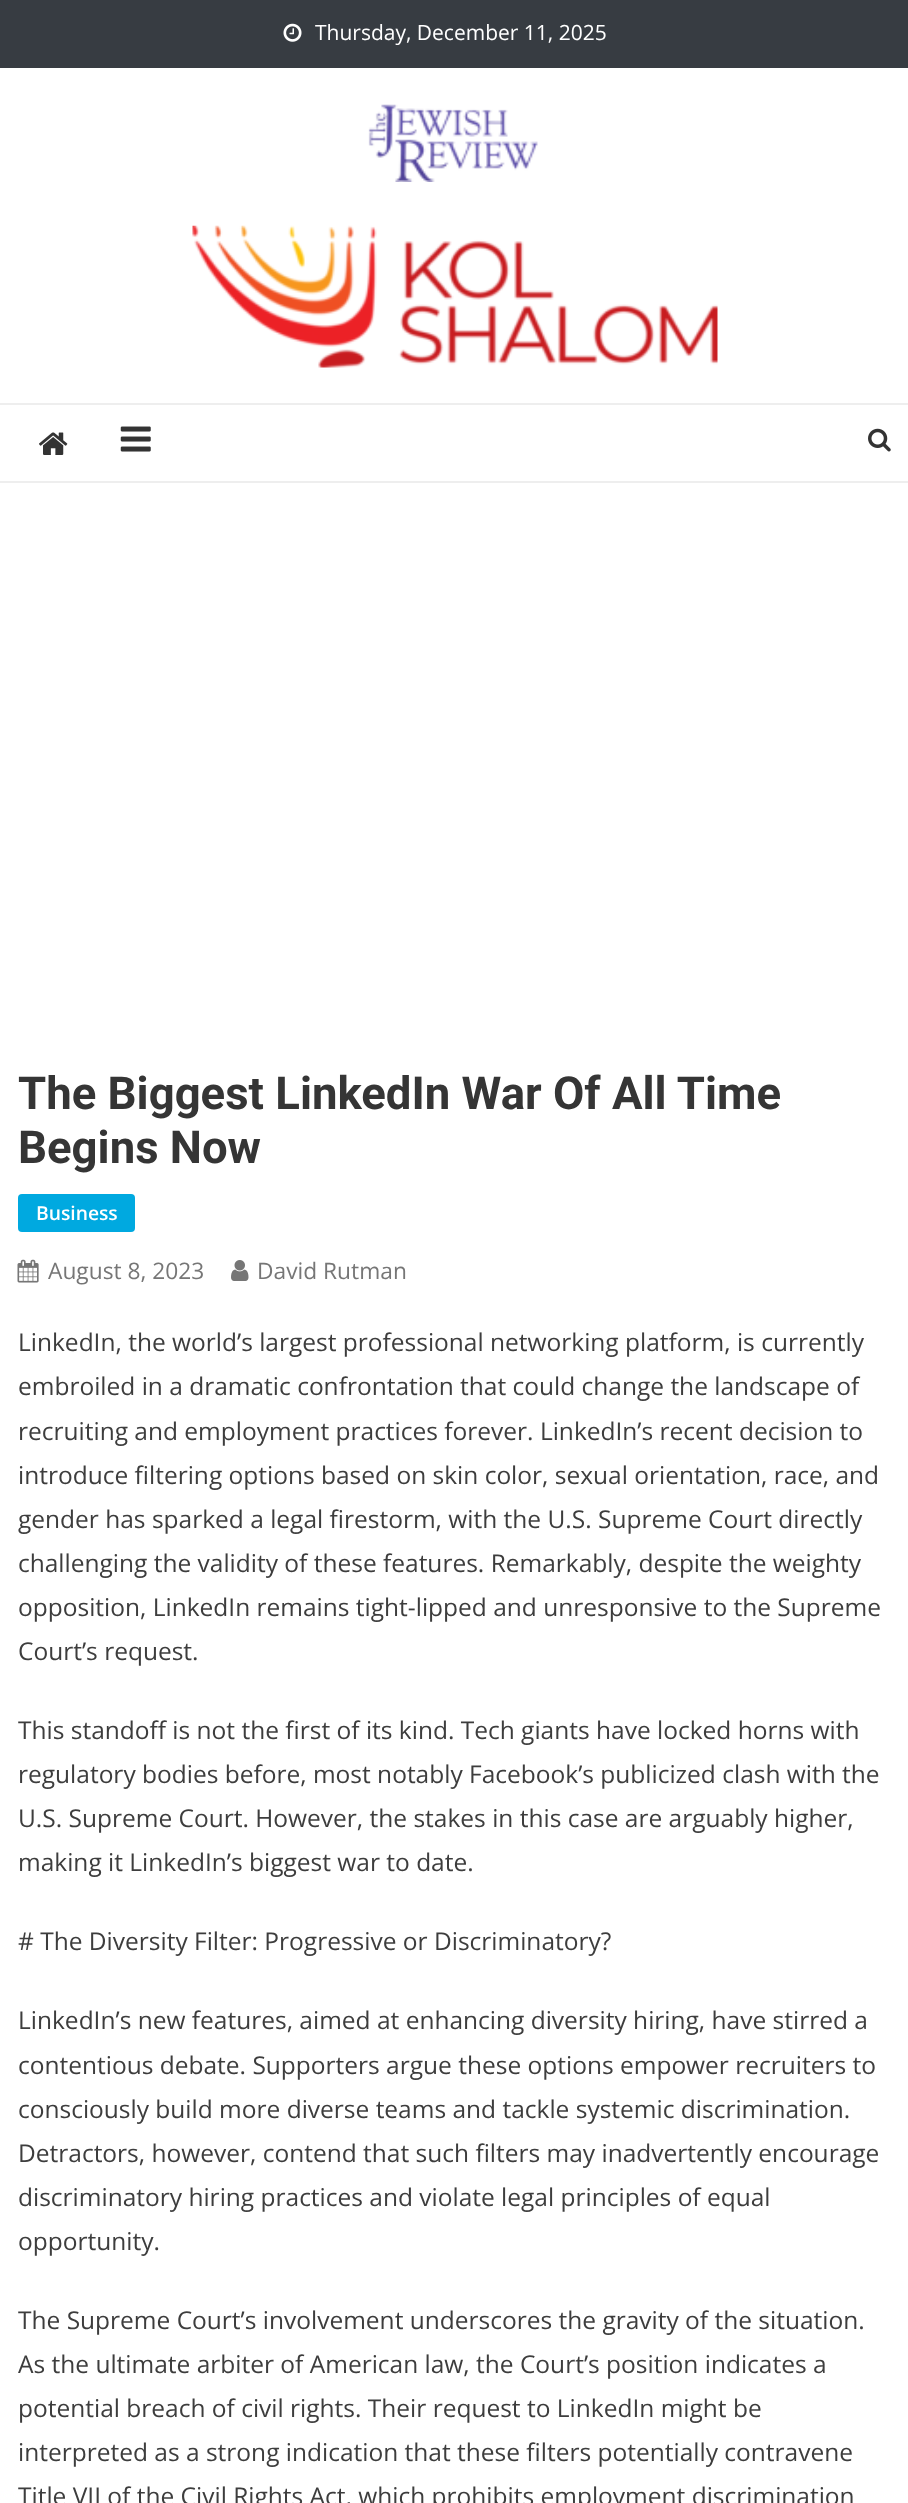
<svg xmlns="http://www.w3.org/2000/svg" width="908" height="2503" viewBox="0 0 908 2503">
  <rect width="100%" height="100%" fill="rgb(255,255,255)"/>
  <rect x="0" y="0" width="908" height="68" fill="rgb(55,60,66)"/>
  <image x="283" y="23" width="19" height="19" href="pic1.png"/>
  <text x="315" y="40" font-family="Open Sans" font-size="21" fill="rgb(255,255,255)">Thursday, December 11, 2025</text>
  <image x="368" y="104" width="170" height="78" href="pic2.png"/>
  <image x="192" y="225" width="526" height="143" href="pic3.png"/>
  <rect x="0" y="403" width="908" height="2" fill="rgb(238,238,238)"/>
  <rect x="0" y="481" width="908" height="2" fill="rgb(238,238,238)"/>
  <image x="39" y="432" width="29" height="23" href="pic4.png"/>
  <image x="120" y="426" width="31" height="26" href="pic5.png"/>
  <image x="868" y="428" width="23" height="24" href="pic6.png"/>
  <g font-family="Roboto" font-size="45.5" font-weight="bold" fill="rgb(53,53,53)">
    <text>
      <tspan x="18" y="1109">The Biggest LinkedIn War Of All Time</tspan>
      <tspan x="18" y="1163">Begins Now</tspan>
    </text>
  </g>
  <rect x="18" y="1194" width="117" height="38" rx="4" fill="rgb(0,169,224)"/>
  <text x="36" y="1220" font-family="Open Sans" font-size="19.25" font-weight="600" fill="rgb(255,255,255)">Business</text>
  <image x="17" y="1259" width="22" height="24" href="pic7.png"/>
  <text x="48" y="1279" font-family="Open Sans" font-size="22.75" fill="rgb(118,118,118)">August 8, 2023</text>
  <image x="231" y="1260" width="18" height="21" href="pic8.png"/>
  <text x="257" y="1279" font-family="Open Sans" font-size="22.75" fill="rgb(118,118,118)">David Rutman</text>
  <g font-family="Open Sans" font-size="24.5" fill="rgb(61,61,61)">
    <text>
      <tspan x="18" y="1351">LinkedIn, the world’s largest professional networking platform, is currently</tspan>
      <tspan x="18" y="1395">embroiled in a dramatic confrontation that could change the landscape of</tspan>
      <tspan x="18" y="1440">recruiting and employment practices forever. LinkedIn’s recent decision to</tspan>
      <tspan x="18" y="1484">introduce filtering options based on skin color, sexual orientation, race, and</tspan>
      <tspan x="18" y="1528">gender has sparked a legal firestorm, with the U.S. Supreme Court directly</tspan>
      <tspan x="18" y="1572">challenging the validity of these features. Remarkably, despite the weighty</tspan>
      <tspan x="18" y="1616">opposition, LinkedIn remains tight-lipped and unresponsive to the Supreme</tspan>
      <tspan x="18" y="1660">Court’s request.</tspan>
    </text>
    <text>
      <tspan x="18" y="1739">This standoff is not the first of its kind. Tech giants have locked horns with</tspan>
      <tspan x="18" y="1783">regulatory bodies before, most notably Facebook’s publicized clash with the</tspan>
      <tspan x="18" y="1827">U.S. Supreme Court. However, the stakes in this case are arguably higher,</tspan>
      <tspan x="18" y="1871">making it LinkedIn’s biggest war to date.</tspan>
    </text>
    <text x="18" y="1950"># The Diversity Filter: Progressive or Discriminatory?</text>
    <text>
      <tspan x="18" y="2029">LinkedIn’s new features, aimed at enhancing diversity hiring, have stirred a</tspan>
      <tspan x="18" y="2074">contentious debate. Supporters argue these options empower recruiters to</tspan>
      <tspan x="18" y="2118">consciously build more diverse teams and tackle systemic discrimination.</tspan>
      <tspan x="18" y="2162">Detractors, however, contend that such filters may inadvertently encourage</tspan>
      <tspan x="18" y="2206">discriminatory hiring practices and violate legal principles of equal</tspan>
      <tspan x="18" y="2250">opportunity.</tspan>
    </text>
    <text>
      <tspan x="18" y="2329">The Supreme Court’s involvement underscores the gravity of the situation.</tspan>
      <tspan x="18" y="2373">As the ultimate arbiter of American law, the Court’s position indicates a</tspan>
      <tspan x="18" y="2417">potential breach of civil rights. Their request to LinkedIn might be</tspan>
      <tspan x="18" y="2461">interpreted as a strong indication that these filters potentially contravene</tspan>
      <tspan x="18" y="2505">Title VII of the Civil Rights Act, which prohibits employment discrimination</tspan>
    </text>
  </g>
</svg>
